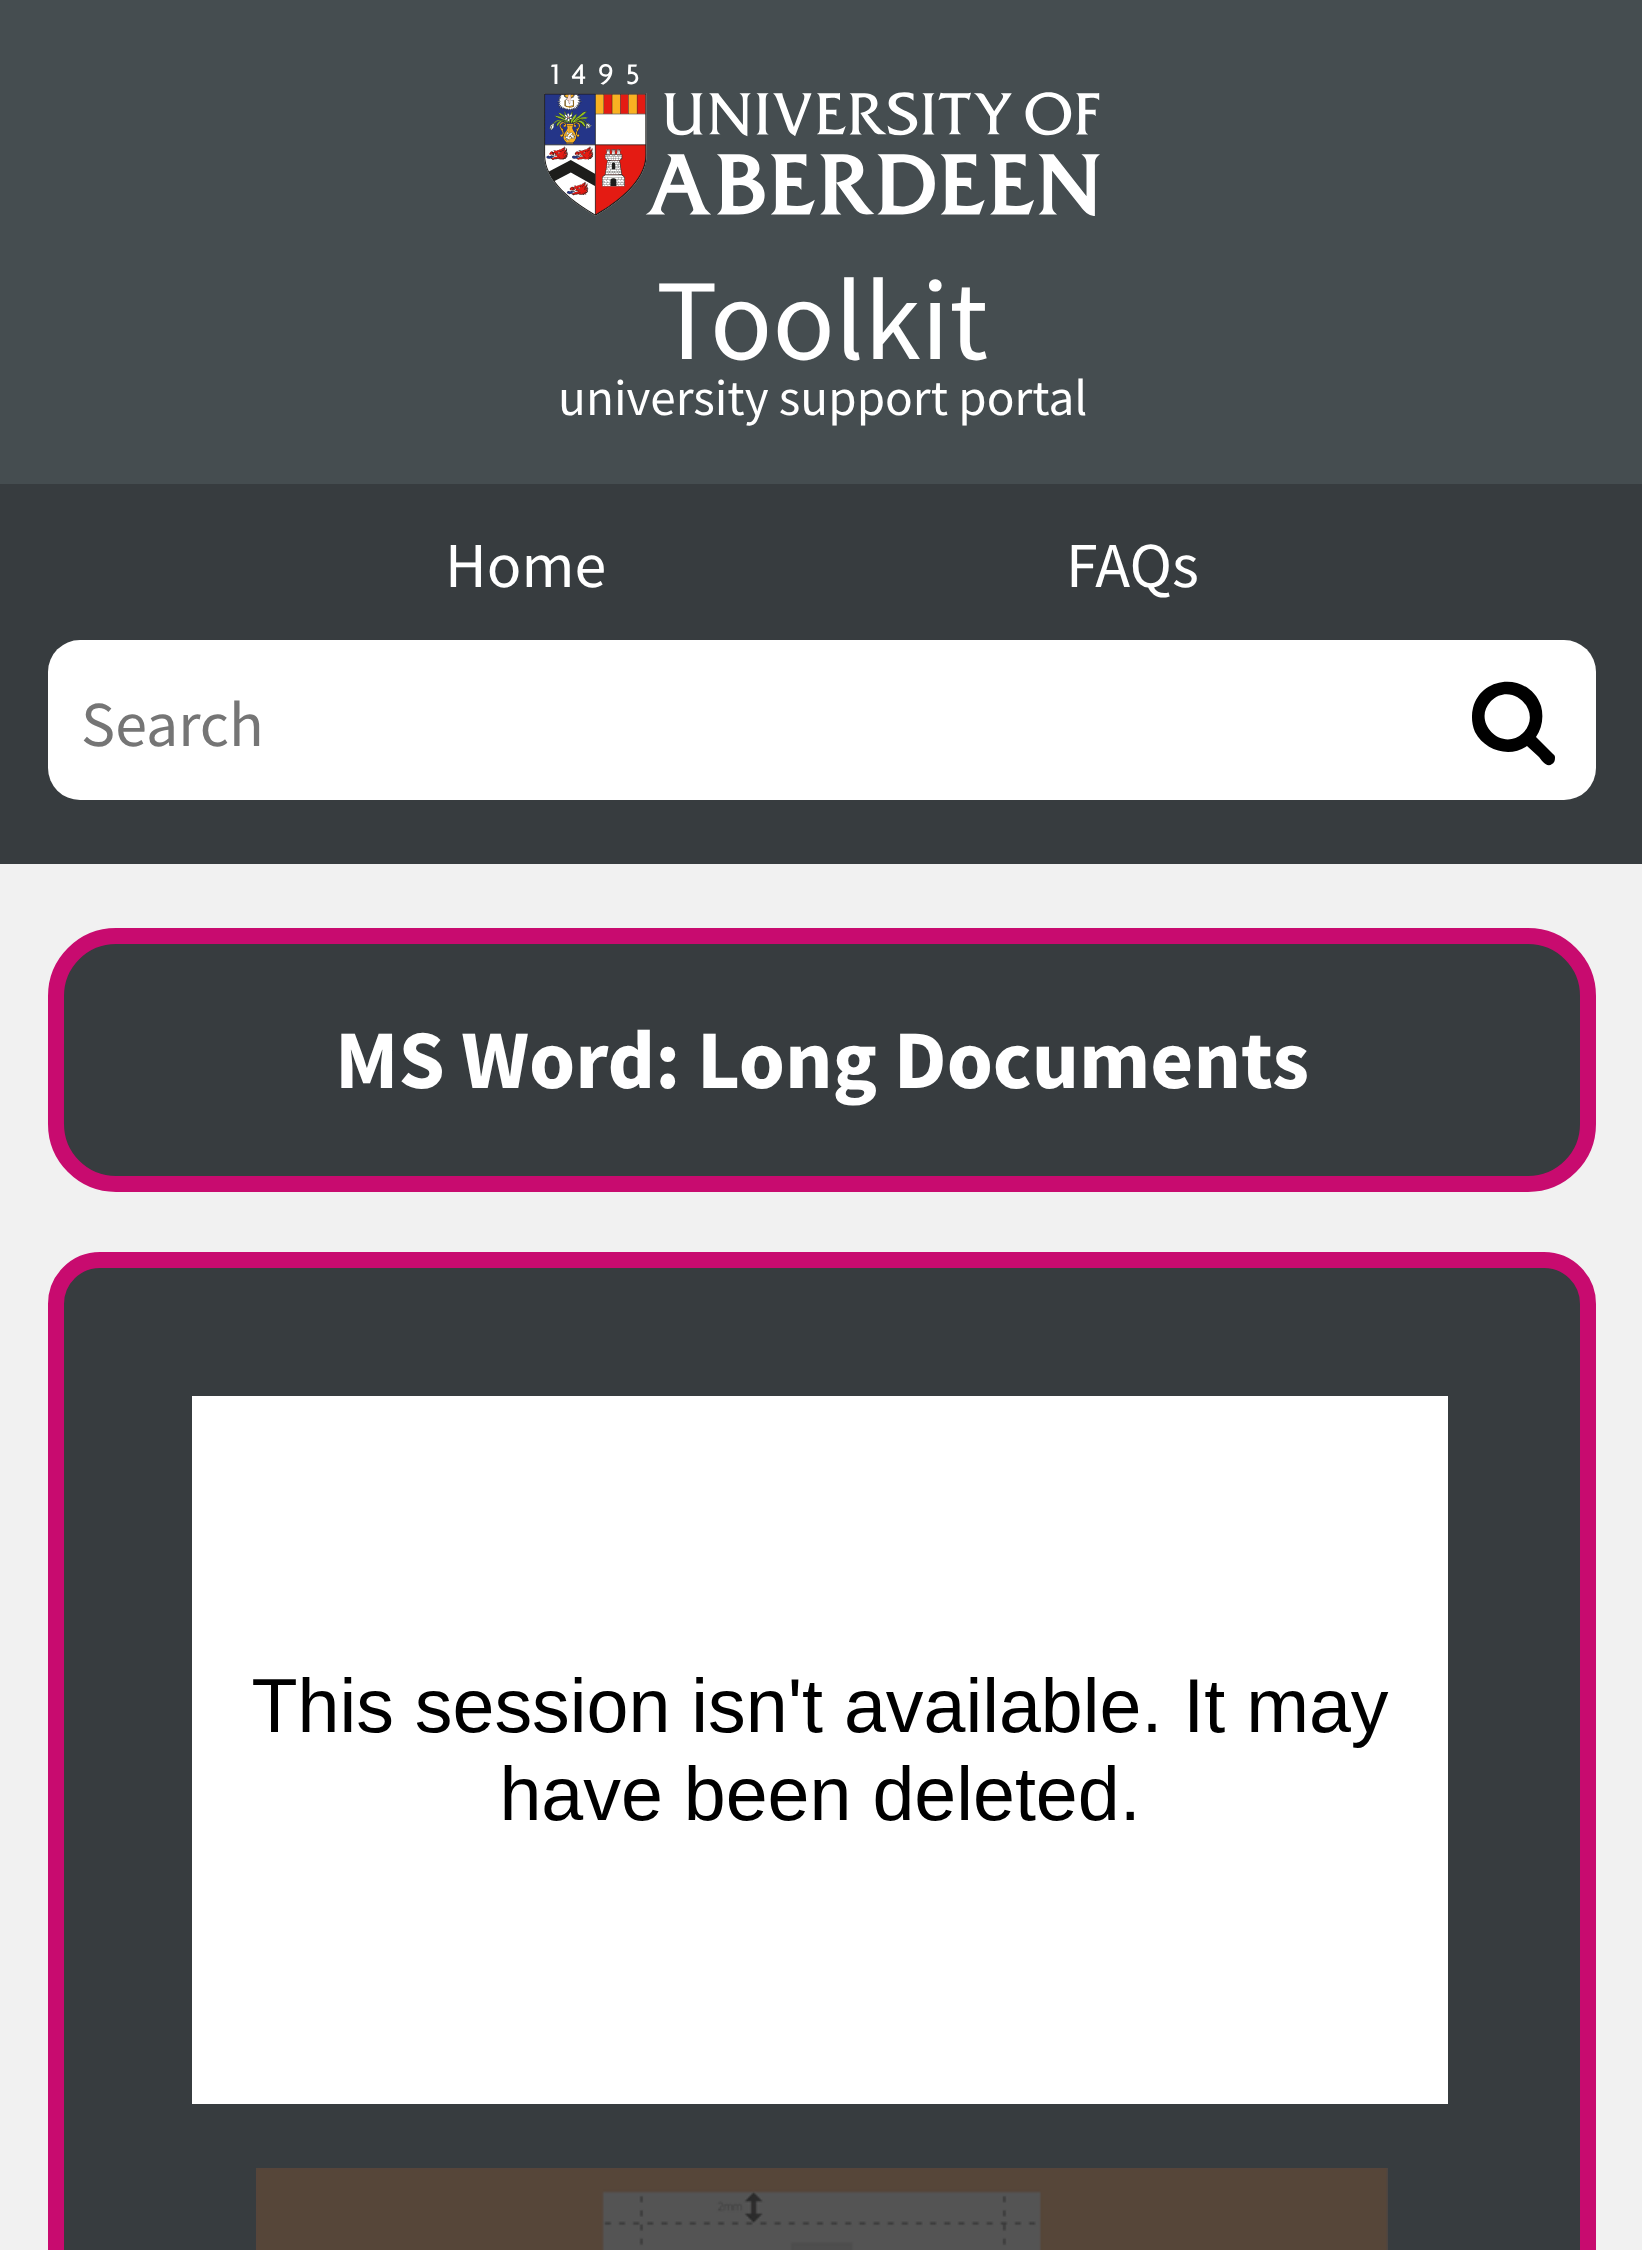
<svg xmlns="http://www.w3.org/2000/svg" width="1642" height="2250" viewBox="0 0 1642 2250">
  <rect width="100%" height="100%" fill="rgb(69,77,80)"/>
  <image x="544" y="64" width="556" height="152" href="pic1.png"/>
  <text x="656" y="359" font-family="Source Sans Pro" font-size="115" fill="rgb(255,255,255)">Toolkit</text>
  <text x="558" y="415" font-family="Source Sans Pro" font-size="51.25" fill="rgb(255,255,255)">university support portal</text>
  <rect x="0" y="484" width="1642" height="380" fill="rgb(55,60,63)"/>
  <g font-family="Source Sans Pro" font-size="64" fill="rgb(255,255,255)">
    <text x="445" y="587">Home</text>
    <text x="1066" y="587">FAQs</text>
  </g>
  <rect x="48" y="640" width="1548" height="160" rx="32" fill="rgb(255,255,255)"/>
  <text x="81" y="746" font-family="Source Sans Pro" font-size="64" fill="rgb(117,117,117)">Search</text>
  <path d="M1523 733C1544 712 1512 680 1491 701C1471 722 1502 753 1523 733ZM1555 758C1555 761 1554 763 1552 764C1547 768 1542 761 1539 757L1527 746C1510 758 1485 751 1475 732C1472 725 1471 716 1473 708C1482 674 1530 673 1541 706C1544 717 1542 728 1536 737L1553 754C1555 755 1555 757 1555 758Z" fill="rgb(0,0,0)"/>
  <rect x="0" y="864" width="1642" height="1386" fill="rgb(241,241,241)"/>
  <rect x="56" y="936" width="1532" height="248" rx="60" fill="rgb(55,60,63)" stroke="rgb(200,11,111)" stroke-width="16"/>
  <text x="335" y="1088" font-family="Source Sans Pro" font-size="83.25" font-weight="bold" fill="rgb(255,255,255)">MS Word: Long Documents</text>
  <rect x="56" y="1260" width="1532" height="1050" rx="44" fill="rgb(55,60,63)" stroke="rgb(200,11,111)" stroke-width="16"/>
  <image x="192" y="1396" width="1256" height="708" href="pic2.png"/>
  <image x="256" y="2168" width="1132" height="82" href="pic3.png"/>
</svg>
